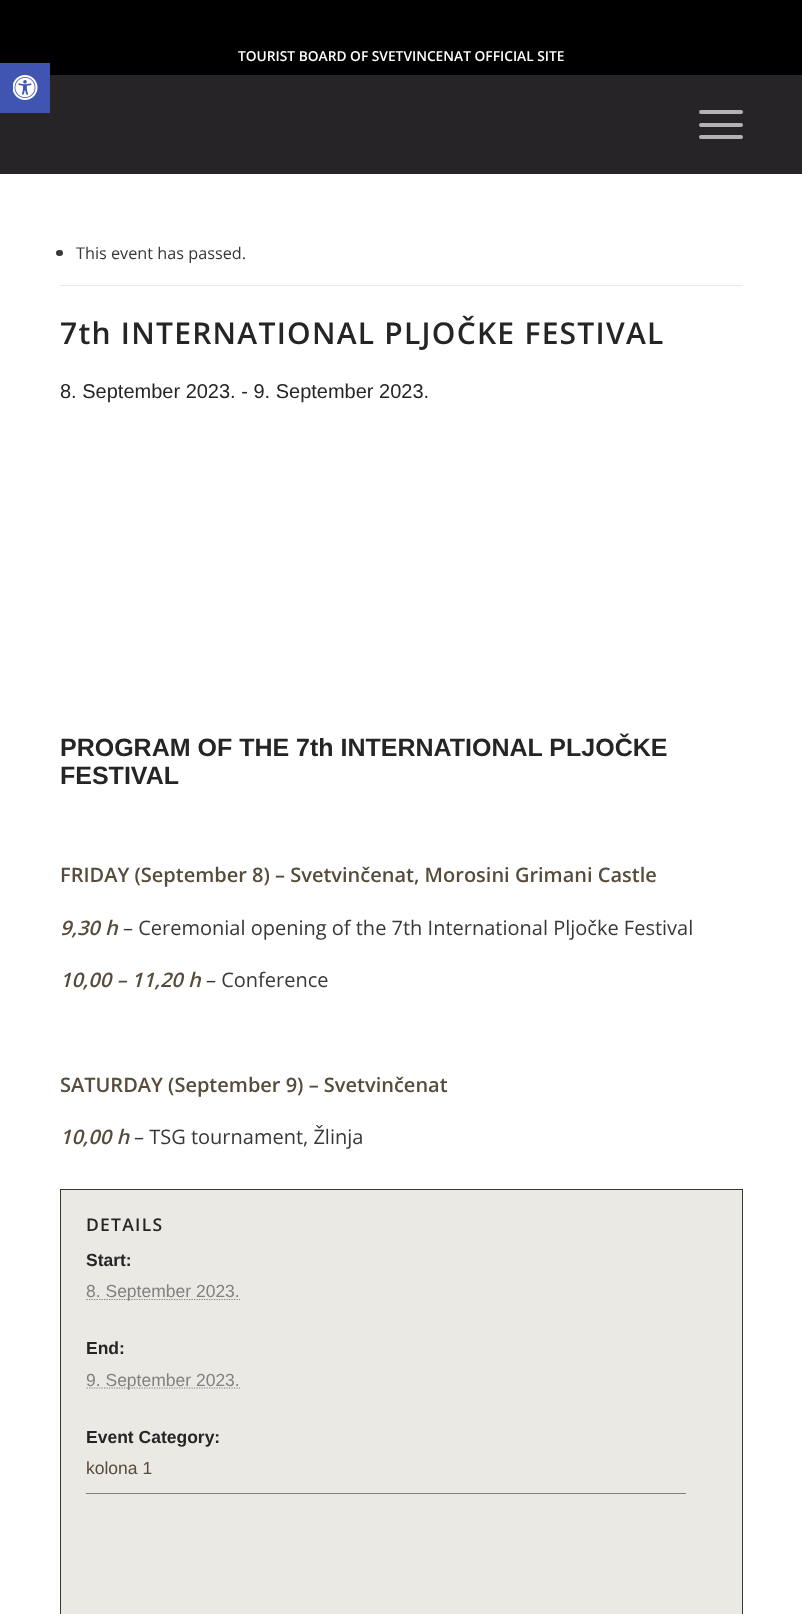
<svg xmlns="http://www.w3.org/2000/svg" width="802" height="1614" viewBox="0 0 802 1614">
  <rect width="100%" height="100%" fill="rgb(255,255,255)"/>
  <rect x="0" y="0" width="802" height="75" fill="rgb(0,0,0)"/>
  <rect x="0" y="75" width="802" height="99" fill="rgb(38,36,38)"/>
  <rect x="0" y="63" width="50" height="50" fill="rgb(64,84,178)"/>
  <image x="13" y="75" width="25" height="25" href="pic1.png"/>
  <text x="238" y="61" font-family="Open Sans" font-size="13.75" font-weight="600" fill="rgb(255,255,255)">TOURIST BOARD OF SVETVINCENAT OFFICIAL SITE</text>
  <rect x="699" y="123" width="44" height="4" rx="2" fill="rgb(179,179,179)"/>
  <rect x="699" y="110" width="44" height="4" rx="2" fill="rgb(179,179,179)"/>
  <rect x="699" y="135" width="44" height="4" rx="2" fill="rgb(179,179,179)"/>
  <rect x="60" y="285" width="683" height="1" fill="rgb(235,232,226)"/>
  <rect x="56" y="250" width="7" height="6" rx="3" fill="rgb(56,56,56)"/>
  <text x="76" y="259" font-family="Open Sans" font-size="16.25" fill="rgb(56,56,56)">This event has passed.</text>
  <text x="60" y="344" font-family="Open Sans" font-size="30" font-weight="600" letter-spacing="1.25" fill="rgb(38,36,38)">7th INTERNATIONAL PLJOČKE FESTIVAL</text>
  <text x="60" y="398" font-family="Liberation Sans" font-size="20" fill="rgb(38,36,38)">8. September 2023. - 9. September 2023.</text>
  <g font-family="Liberation Sans" font-size="25" font-weight="bold" fill="rgb(38,36,38)">
    <text>
      <tspan x="60" y="756">PROGRAM OF THE 7th INTERNATIONAL PLJOČKE</tspan>
      <tspan x="60" y="784">FESTIVAL</tspan>
    </text>
  </g>
  <text x="60" y="882" font-family="Open Sans" font-size="20" font-weight="600" fill="rgb(87,76,59)">FRIDAY (September 8) – Svetvinčenat, Morosini Grimani Castle</text>
  <text x="60" y="935" font-family="Open Sans" font-size="20" font-weight="600" font-style="italic" fill="rgb(87,76,59)">9,30 h</text>
  <text x="123" y="935" font-family="Open Sans" font-size="20" fill="rgb(56,56,56)">– Ceremonial opening of the 7th International Pljočke Festival</text>
  <text x="60" y="987" font-family="Open Sans" font-size="20" font-weight="600" font-style="italic" fill="rgb(87,76,59)">10,00 – 11,20 h</text>
  <text x="206" y="987" font-family="Open Sans" font-size="20" fill="rgb(56,56,56)">– Conference</text>
  <text x="60" y="1092" font-family="Open Sans" font-size="20" font-weight="600" fill="rgb(87,76,59)">SATURDAY (September 9) – Svetvinčenat</text>
  <text x="60" y="1144" font-family="Open Sans" font-size="20" font-weight="600" font-style="italic" fill="rgb(87,76,59)">10,00 h</text>
  <text x="134" y="1144" font-family="Open Sans" font-size="20" fill="rgb(56,56,56)">– TSG tournament, Žlinja</text>
  <rect x="60.5" y="1189.5" width="682" height="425" fill="rgb(235,233,228)" stroke="rgb(56,56,56)"/>
  <text x="86" y="1231" font-family="Open Sans" font-size="17.5" font-weight="600" letter-spacing="1.25" fill="rgb(38,36,38)">DETAILS</text>
  <text x="86" y="1266" font-family="Liberation Sans" font-size="17.5" font-weight="bold" fill="rgb(38,36,38)">Start:</text>
  <path d="M86.5 1299.5H240" fill="none" stroke="rgb(130,128,130)" stroke-width="1.2" stroke-dasharray="1.25 1.25"/>
  <text x="86" y="1297" font-family="Liberation Sans" font-size="17.5" fill="rgb(130,128,130)">8. September 2023.</text>
  <text x="86" y="1354" font-family="Liberation Sans" font-size="17.5" font-weight="bold" fill="rgb(38,36,38)">End:</text>
  <path d="M86.5 1388H240" fill="none" stroke="rgb(130,128,130)" stroke-width="1.2" stroke-dasharray="1.25 1.25"/>
  <text x="86" y="1386" font-family="Liberation Sans" font-size="17.5" fill="rgb(130,128,130)">9. September 2023.</text>
  <text x="86" y="1443" font-family="Liberation Sans" font-size="17.5" font-weight="bold" fill="rgb(38,36,38)">Event Category:</text>
  <rect x="86" y="1493" width="600" height="1" fill="rgb(130,128,130)"/>
  <text x="86" y="1474" font-family="Liberation Sans" font-size="17.5" fill="rgb(87,76,59)">kolona 1</text>
</svg>
